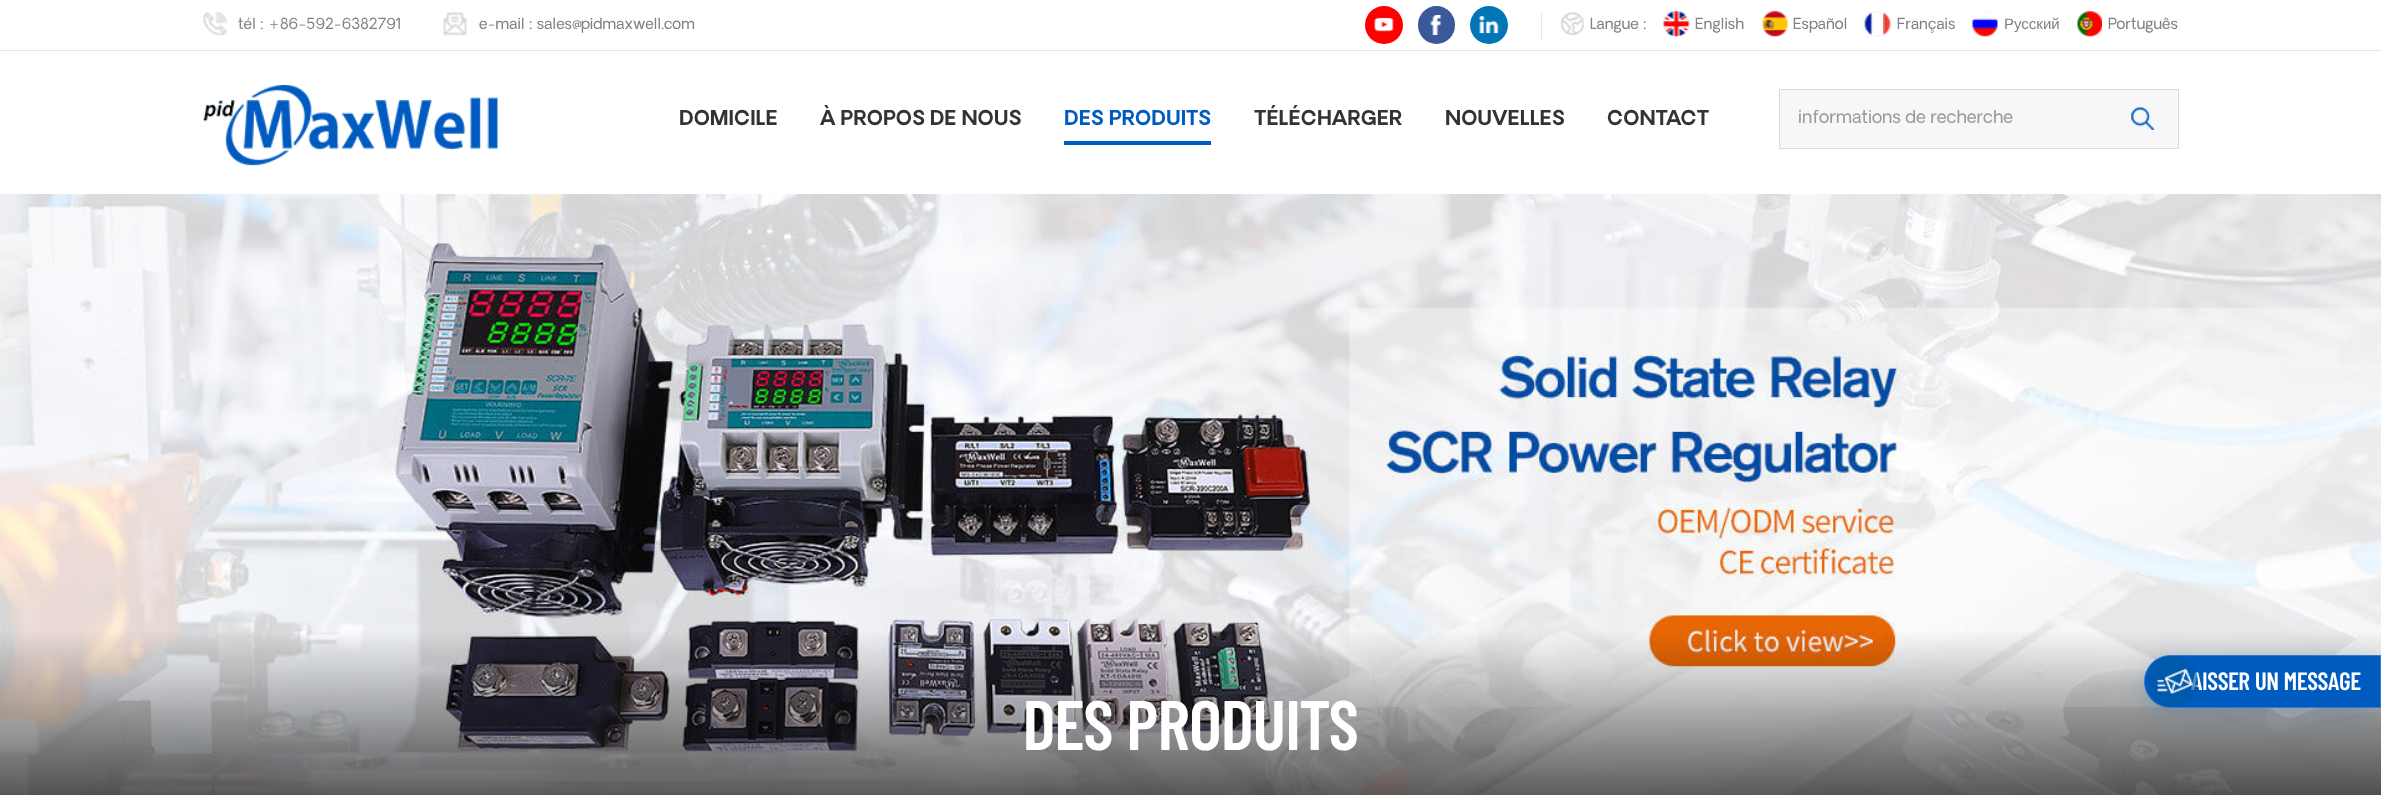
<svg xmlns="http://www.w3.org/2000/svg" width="2381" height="795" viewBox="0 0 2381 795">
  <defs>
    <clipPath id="clip1"><rect x="1799" y="110" width="304" height="19"/></clipPath>
  </defs>
  <rect width="100%" height="100%" fill="rgb(255,255,255)"/>
  <rect x="0" y="50" width="2381" height="1" fill="rgb(229,229,229)"/>
  <image x="203" y="12" width="24" height="24" href="pic1.png"/>
  <text x="238" y="29" font-family="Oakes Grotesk" font-size="15" fill="rgb(128,128,128)">tél : +86-592-6382791</text>
  <image x="443" y="12" width="24" height="24" href="pic2.png"/>
  <text x="479" y="29" font-family="Oakes Grotesk" font-size="15" fill="rgb(128,128,128)">e-mail : sales@pidmaxwell.com</text>
  <circle cx="1384" cy="25" r="19" fill="rgb(255,0,0)"/>
  <image x="1374" y="17" width="20" height="15" href="pic3.png"/>
  <rect x="1418" y="6" width="37" height="38" rx="18.5" fill="rgb(59,89,152)"/>
  <image x="1430" y="15" width="12" height="20" href="pic4.png"/>
  <circle cx="1489" cy="25" r="19" fill="rgb(2,117,182)"/>
  <image x="1479" y="16" width="20" height="18" href="pic5.png"/>
  <rect x="1541" y="13" width="1" height="28" fill="rgb(229,229,229)"/>
  <image x="1560" y="12" width="24" height="23" href="pic6.png"/>
  <text x="1590" y="29" font-family="Oakes Grotesk" font-size="15" fill="rgb(128,128,128)">Langue :</text>
  <image x="1663" y="11" width="27" height="26" href="pic7.png"/>
  <text x="1695" y="29" font-family="Oakes Grotesk" font-size="15" fill="rgb(128,128,128)">English</text>
  <image x="1762" y="11" width="26" height="26" href="pic8.png"/>
  <text x="1793" y="29" font-family="Oakes Grotesk" font-size="15" fill="rgb(128,128,128)">Español</text>
  <image x="1864" y="11" width="27" height="26" href="pic9.png"/>
  <text x="1897" y="29" font-family="Oakes Grotesk" font-size="15" fill="rgb(128,128,128)">Français</text>
  <image x="1972" y="11" width="26" height="26" href="pic10.png"/>
  <text x="2004" y="29" font-family="Liberation Sans" font-size="15" fill="rgb(128,128,128)">Русский</text>
  <image x="2077" y="11" width="25" height="26" href="pic11.png"/>
  <text x="2108" y="29" font-family="Oakes Grotesk" font-size="15" fill="rgb(128,128,128)">Português</text>
  <image x="203" y="85" width="295" height="81" href="pic12.png"/>
  <g font-family="Oakes Grotesk" font-size="20" font-weight="bold" fill="rgb(51,51,51)">
    <text x="679" y="125">DOMICILE</text>
    <text x="820" y="125">À PROPOS DE NOUS</text>
  </g>
  <text x="1064" y="125" font-family="Oakes Grotesk" font-size="20" font-weight="bold" fill="rgb(0,91,193)">DES PRODUITS</text>
  <rect x="1064" y="141" width="147" height="4" fill="rgb(0,91,193)"/>
  <g font-family="Oakes Grotesk" font-size="20" font-weight="bold" fill="rgb(51,51,51)">
    <text x="1254" y="125">TÉLÉCHARGER</text>
    <text x="1445" y="125">NOUVELLES</text>
    <text x="1607" y="125">CONTACT</text>
  </g>
  <rect x="1779.5" y="89.5" width="399" height="59" fill="rgb(247,247,247)" stroke="rgb(217,217,217)"/>
  <g clip-path="url(#clip1)">
    <text x="1798" y="123" font-family="Oakes Grotesk" font-size="17.5" fill="rgb(153,153,153)">informations de recherche</text>
  </g>
  <image x="2131" y="107" width="23" height="23" href="pic13.png"/>
  <image x="0" y="194" width="2381" height="601" href="pic15.png"/>
  <rect x="2144" y="661" width="237" height="53" rx="26.5" fill="rgba(0,91,163,0.2)" filter="blur(12.5px)"/>
  <path d="M2170.5 655H2381V708H2170.5C2156 708 2144 696 2144 681.5C2144 667 2156 655 2170.5 655Z" fill="rgb(0,91,193)"/>
  <path d="M2170.5 655.5H2380.5V707.5H2170.5C2156 707.5 2144.5 696 2144.5 681.5C2144.5 667 2156 655.5 2170.5 655.5Z" fill="none" stroke="rgba(255,255,255,0.2)"/>
  <text x="2191" y="690" font-family="Barlow Condensed" font-size="25" font-weight="600" fill="rgb(255,255,255)">AISSER UN MESSAGE</text>
  <circle cx="2173" cy="681" r="25" fill="rgba(0,91,163,0.3)"/>
  <circle cx="2173" cy="681" r="25" fill="rgba(0,91,163,0.3)"/>
  <circle cx="2173" cy="681" r="25" fill="rgba(0,91,163,0.3)"/>
  <image x="2157" y="668" width="36" height="26" href="pic14.png"/>
  <text x="1023" y="750" font-family="Barlow Condensed" font-size="70" font-weight="600" fill="rgb(255,255,255)">DES PRODUITS</text>
</svg>
